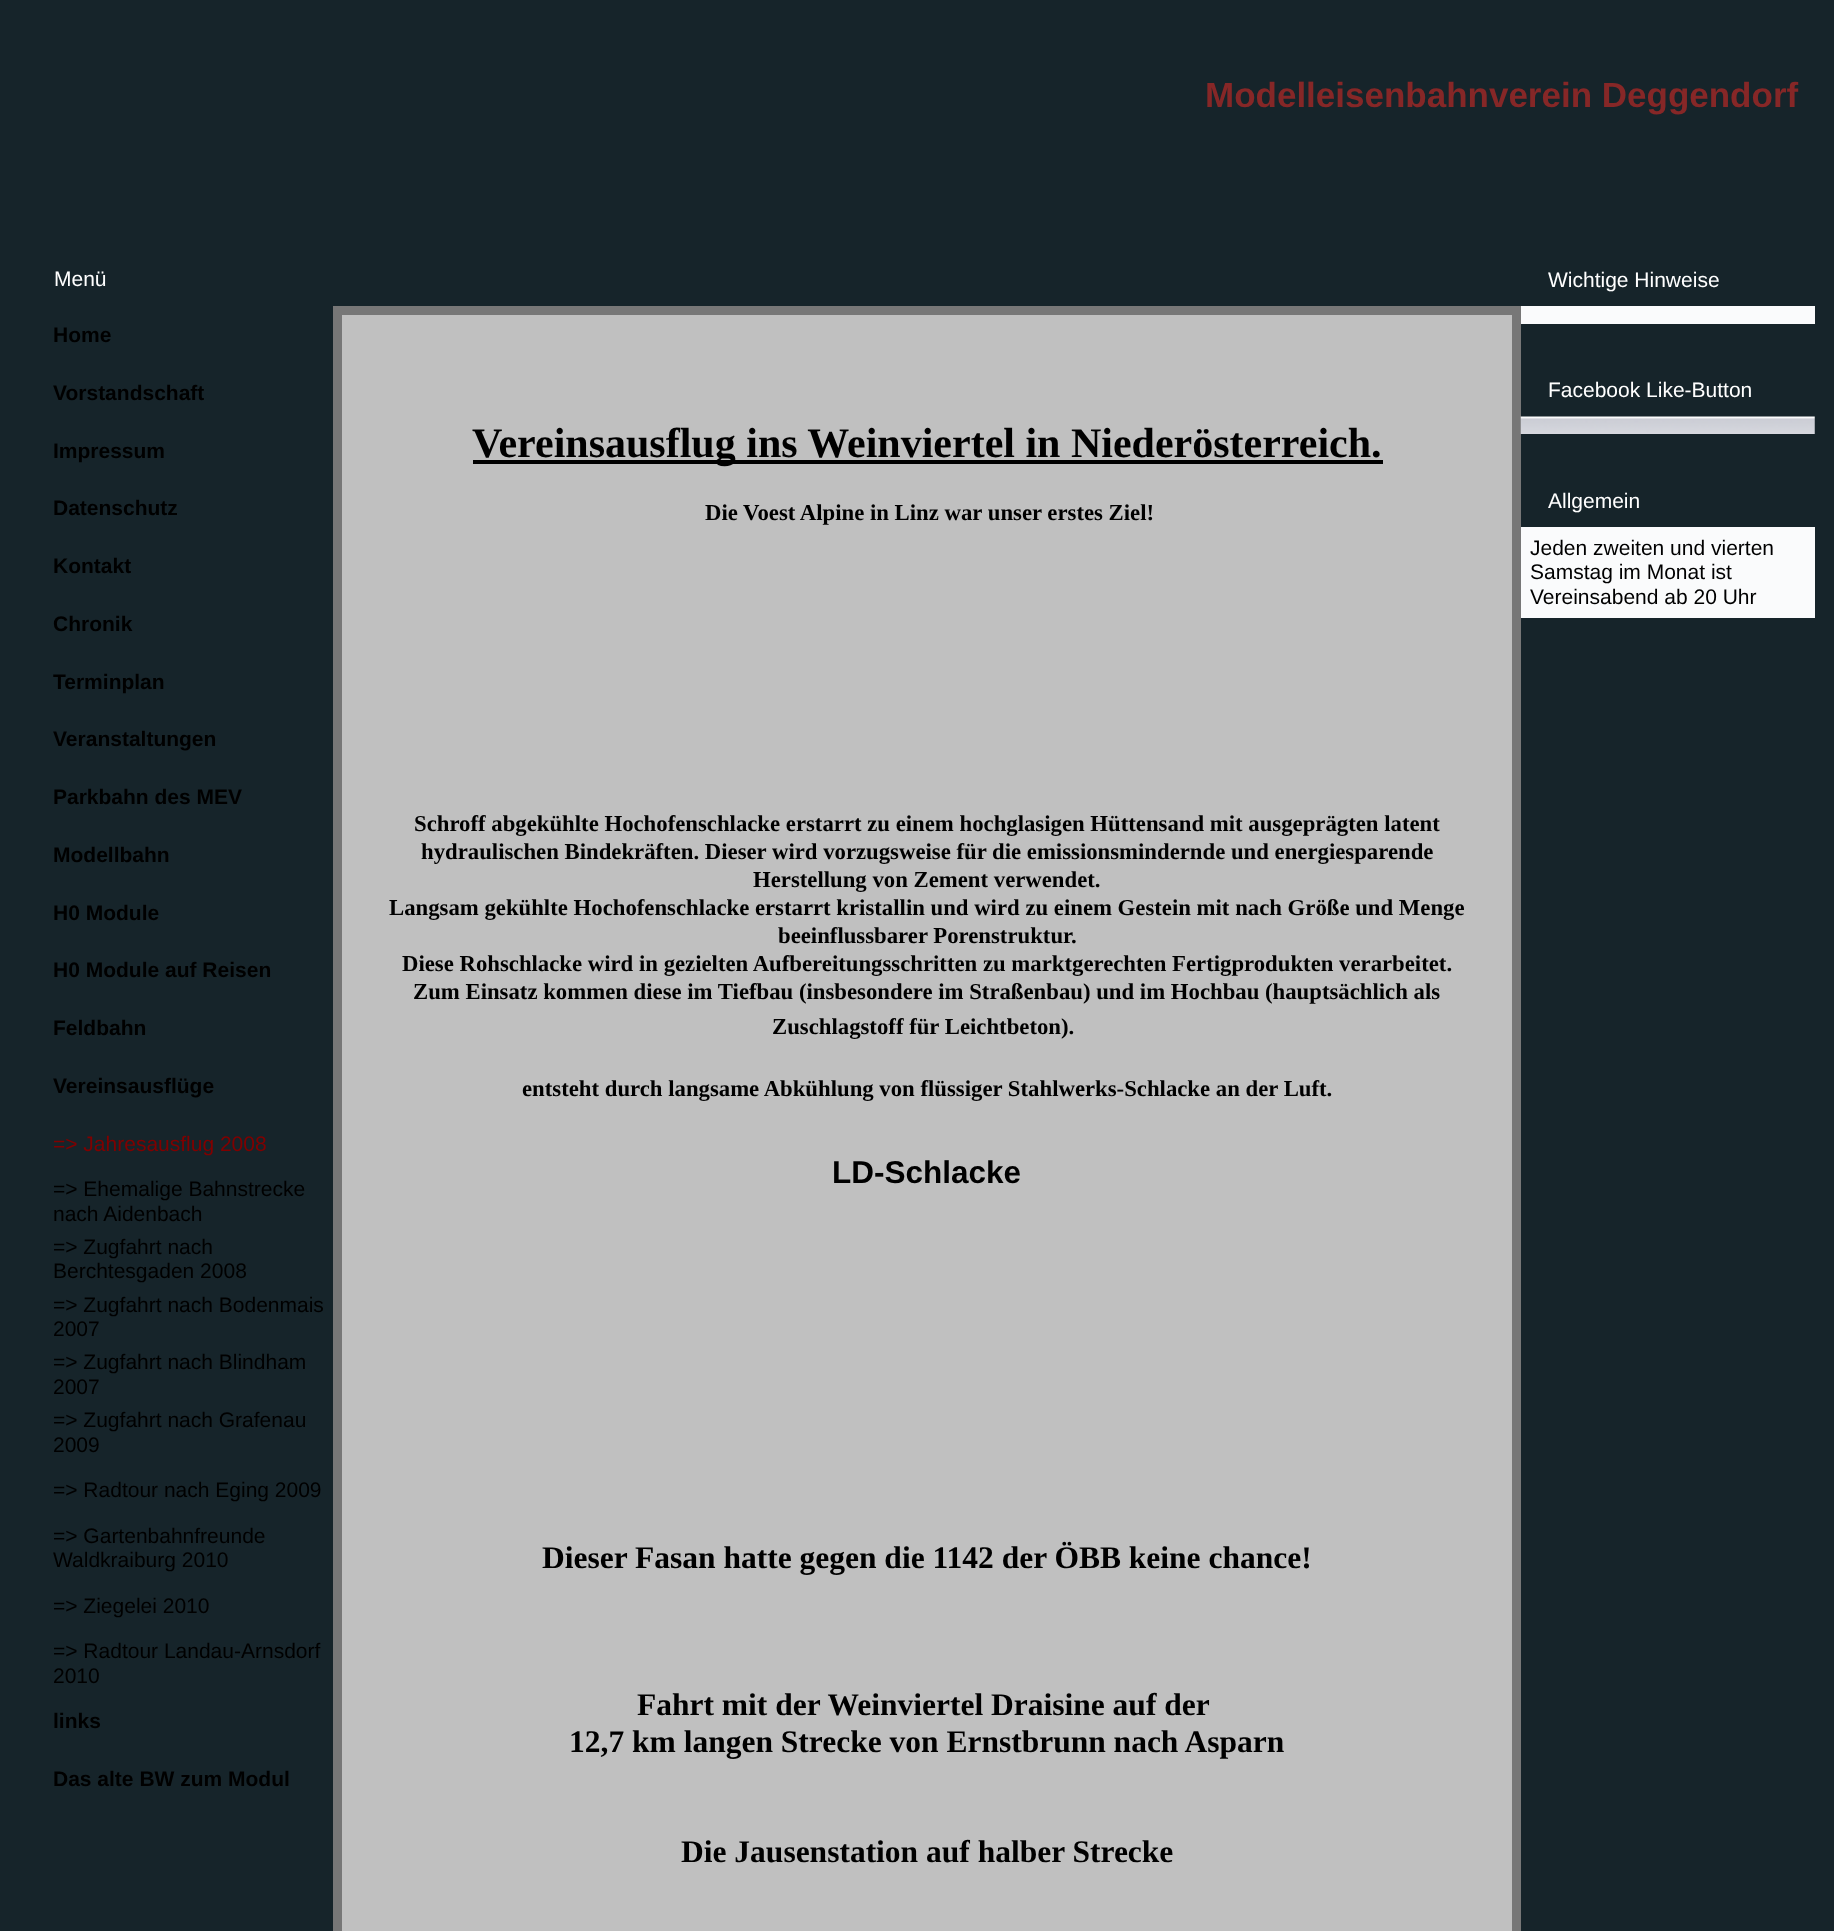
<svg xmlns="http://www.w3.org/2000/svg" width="1834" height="1931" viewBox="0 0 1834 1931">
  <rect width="100%" height="100%" fill="rgb(22,36,42)"/>
  <text x="1205" y="107" font-family="Liberation Sans" font-size="35" font-weight="bold" fill="rgb(134,39,39)">Modelleisenbahnverein Deggendorf</text>
  <text x="54" y="286" font-family="Liberation Sans" font-size="21" fill="rgb(255,255,255)">Menü</text>
  <g font-family="Liberation Sans" font-size="21" font-weight="bold" fill="rgb(0,0,0)">
    <text x="53" y="342">Home</text>
    <text x="53" y="400">Vorstandschaft</text>
    <text x="53" y="458">Impressum</text>
    <text x="53" y="515">Datenschutz</text>
    <text x="53" y="573">Kontakt</text>
    <text x="53" y="631">Chronik</text>
    <text x="53" y="689">Terminplan</text>
    <text x="53" y="746">Veranstaltungen</text>
    <text x="53" y="804">Parkbahn des MEV</text>
    <text x="53" y="862">Modellbahn</text>
    <text x="53" y="920">H0 Module</text>
    <text x="53" y="977">H0 Module auf Reisen</text>
    <text x="53" y="1035">Feldbahn</text>
    <text x="53" y="1093">Vereinsausflüge</text>
  </g>
  <text x="53" y="1151" font-family="Liberation Sans" font-size="21" fill="rgb(128,0,0)">=&gt; Jahresausflug 2008</text>
  <g font-family="Liberation Sans" font-size="21" fill="rgb(0,0,0)">
    <text>
      <tspan x="53" y="1196">=&gt; Ehemalige Bahnstrecke</tspan>
      <tspan x="53" y="1221">nach Aidenbach</tspan>
      <tspan x="53" y="1254">=&gt; Zugfahrt nach</tspan>
      <tspan x="53" y="1278">Berchtesgaden 2008</tspan>
      <tspan x="53" y="1312">=&gt; Zugfahrt nach Bodenmais</tspan>
      <tspan x="53" y="1336">2007</tspan>
      <tspan x="53" y="1369">=&gt; Zugfahrt nach Blindham</tspan>
      <tspan x="53" y="1394">2007</tspan>
      <tspan x="53" y="1427">=&gt; Zugfahrt nach Grafenau</tspan>
      <tspan x="53" y="1452">2009</tspan>
    </text>
    <text x="53" y="1497">=&gt; Radtour nach Eging 2009</text>
    <text>
      <tspan x="53" y="1543">=&gt; Gartenbahnfreunde</tspan>
      <tspan x="53" y="1567">Waldkraiburg 2010</tspan>
    </text>
    <text x="53" y="1613">=&gt; Ziegelei 2010</text>
    <text>
      <tspan x="53" y="1658">=&gt; Radtour Landau-Arnsdorf</tspan>
      <tspan x="53" y="1683">2010</tspan>
    </text>
  </g>
  <g font-family="Liberation Sans" font-size="21" font-weight="bold" fill="rgb(0,0,0)">
    <text x="53" y="1728">links</text>
    <text x="53" y="1786">Das alte BW zum Modul</text>
  </g>
  <rect x="337.5" y="310.5" width="1179" height="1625" fill="rgb(192,192,192)" stroke="rgb(119,119,119)" stroke-width="9"/>
  <rect x="473" y="460" width="910" height="4" fill="rgb(0,0,0)"/>
  <text x="472" y="457" font-family="Liberation Serif" font-size="42" font-weight="bold" fill="rgb(0,0,0)">Vereinsausflug ins Weinviertel in Niederösterreich.</text>
  <g font-family="Liberation Serif" font-size="22.75" font-weight="bold" fill="rgb(0,0,0)">
    <text x="705" y="520">Die Voest Alpine in Linz war unser erstes Ziel!</text>
    <text x="414" y="831">Schroff abgekühlte Hochofenschlacke erstarrt zu einem hochglasigen Hüttensand mit ausgeprägten latent</text>
    <text x="421" y="859">hydraulischen Bindekräften. Dieser wird vorzugsweise für die emissionsmindernde und energiesparende</text>
    <text x="753" y="887">Herstellung von Zement verwendet.</text>
    <text x="389" y="915">Langsam gekühlte Hochofenschlacke erstarrt kristallin und wird zu einem Gestein mit nach Größe und Menge</text>
    <text x="778" y="943">beeinflussbarer Porenstruktur.</text>
    <text x="402" y="971">Diese Rohschlacke wird in gezielten Aufbereitungsschritten zu marktgerechten Fertigprodukten verarbeitet.</text>
    <text x="413" y="999">Zum Einsatz kommen diese im Tiefbau (insbesondere im Straßenbau) und im Hochbau (hauptsächlich als</text>
    <text x="772" y="1034">Zuschlagstoff für Leichtbeton).</text>
    <text x="522" y="1096">entsteht durch langsame Abkühlung von flüssiger Stahlwerks-Schlacke an der Luft.</text>
  </g>
  <text x="832" y="1183" font-family="Liberation Sans" font-size="31.5" font-weight="bold" fill="rgb(0,0,0)">LD-Schlacke</text>
  <g font-family="Liberation Serif" font-size="31.5" font-weight="bold" fill="rgb(0,0,0)">
    <text x="542" y="1568">Dieser Fasan hatte gegen die 1142 der ÖBB keine chance!</text>
    <text x="637" y="1715">Fahrt mit der Weinviertel Draisine auf der</text>
    <text x="569" y="1752">12,7 km langen Strecke von Ernstbrunn nach Asparn</text>
    <text x="681" y="1862">Die Jausenstation auf halber Strecke</text>
  </g>
  <text x="1548" y="287" font-family="Liberation Sans" font-size="21" fill="rgb(255,255,255)">Wichtige Hinweise</text>
  <rect x="1521" y="306" width="294" height="18" fill="rgb(250,251,252)"/>
  <text x="1548" y="397" font-family="Liberation Sans" font-size="21" fill="rgb(255,255,255)">Facebook Like-Button</text>
  <image x="1520" y="416" width="295" height="18" href="pic1.png"/>
  <text x="1548" y="508" font-family="Liberation Sans" font-size="21" fill="rgb(255,255,255)">Allgemein</text>
  <rect x="1521" y="527" width="294" height="91" fill="rgb(250,251,252)"/>
  <g font-family="Liberation Sans" font-size="21" fill="rgb(0,0,0)">
    <text>
      <tspan x="1530" y="555">Jeden zweiten und vierten</tspan>
      <tspan x="1530" y="579">Samstag im Monat ist</tspan>
      <tspan x="1530" y="604">Vereinsabend ab 20 Uhr</tspan>
    </text>
  </g>
</svg>
